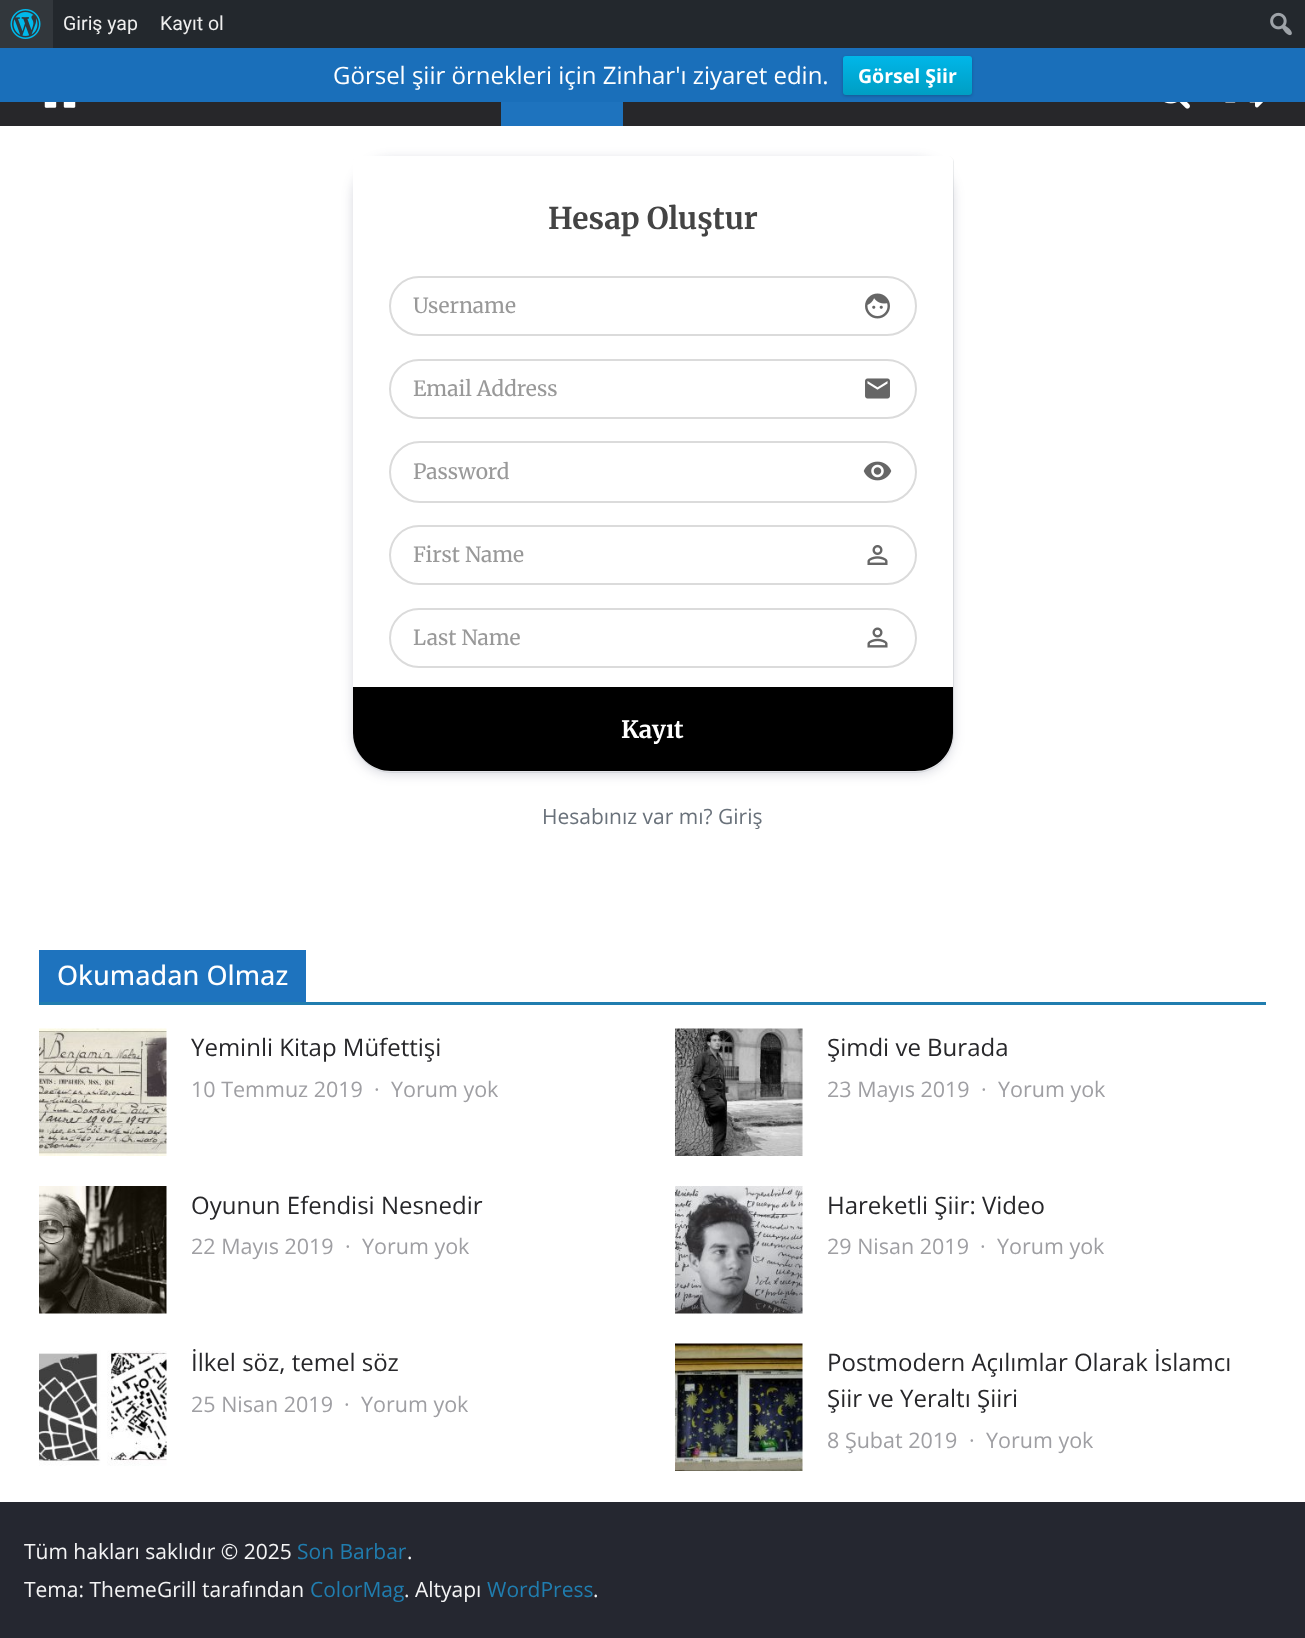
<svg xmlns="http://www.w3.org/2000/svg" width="1305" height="1638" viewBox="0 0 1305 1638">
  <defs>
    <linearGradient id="g1" gradientUnits="userSpaceOnUse" x1="908" y1="55" x2="908" y2="95"><stop offset="0" stop-color="rgb(0,183,234)"/><stop offset="1" stop-color="rgb(0,158,195)"/></linearGradient>
  </defs>
  <rect width="100%" height="100%" fill="rgb(255,255,255)"/>
  <rect x="53" y="0" width="1252" height="48" fill="rgb(35,40,45)"/>
  <rect x="0" y="0" width="53" height="48" fill="rgb(50,55,60)"/>
  <image x="10" y="9" width="31" height="30" href="pic1.png"/>
  <g font-family="Roboto" font-size="19.5" fill="rgb(238,238,238)">
    <text x="63" y="30">Giriş yap</text>
    <text x="160" y="30">Kayıt ol</text>
  </g>
  <image x="1270" y="12" width="22" height="24" href="pic2.png"/>
  <rect x="0" y="48" width="1305" height="54" fill="rgb(26,111,186)"/>
  <text x="333" y="84" font-family="Open Sans" font-size="24" fill="rgb(255,255,255)">Görsel şiir örnekleri için Zinhar'ı ziyaret edin.</text>
  <rect x="843" y="57" width="129" height="39" rx="3" fill="rgba(0,0,0,0.2)" filter="blur(1.5px)"/>
  <rect x="843" y="56" width="129" height="39" rx="3" fill="url(#g1)"/>
  <text x="858" y="83" font-family="Open Sans" font-size="19.5" font-weight="bold" fill="rgb(255,255,255)">Görsel Şiir</text>
  <rect x="0" y="102" width="1305" height="24" fill="rgb(39,39,42)"/>
  <image x="44" y="102" width="32" height="6" href="pic3.png"/>
  <rect x="501" y="102" width="122" height="24" fill="rgb(30,115,190)"/>
  <image x="1164" y="102" width="26" height="7" href="pic4.png"/>
  <image x="1225" y="102" width="38" height="6" href="pic5.png"/>
  <rect x="353" y="159" width="600" height="615" rx="38" fill="rgba(50,55,90,0.2)" filter="blur(6px)"/>
  <path d="M359 156.5H948C951 156.5 953.5 159 953.5 162V734C953.5 755.5 936.5 772.5 915 772.5H392C370.5 772.5 353.5 755.5 353.5 734V162C353.5 159 356 156.5 359 156.5Z" fill="none" stroke="rgba(0,20,40,0.1)" stroke-width="0.8"/>
  <path d="M358 156H948C951 156 953 158 953 161V733C953 754 936 771 915 771H391C370 771 353 754 353 733V161C353 158 355 156 358 156Z" fill="rgb(255,255,255)"/>
  <text x="548" y="229" font-family="Merriweather" font-size="30" font-weight="bold" fill="rgb(68,68,68)">Hesap Oluştur</text>
  <rect x="390" y="277" width="526" height="58" rx="29" fill="none" stroke="rgb(219,219,219)" stroke-width="2"/>
  <text x="413" y="313" font-family="Merriweather" font-size="21" fill="rgb(153,153,153)">Username</text>
  <image x="865" y="293" width="25" height="26" href="pic6.png"/>
  <rect x="390" y="360" width="526" height="58" rx="29" fill="none" stroke="rgb(219,219,219)" stroke-width="2"/>
  <text x="413" y="396" font-family="Merriweather" font-size="21" fill="rgb(153,153,153)">Email Address</text>
  <image x="865" y="378" width="25" height="21" href="pic7.png"/>
  <rect x="390" y="442" width="526" height="60" rx="30" fill="none" stroke="rgb(219,219,219)" stroke-width="2"/>
  <text x="413" y="479" font-family="Merriweather" font-size="21" fill="rgb(153,153,153)">Password</text>
  <image x="863" y="461" width="29" height="20" href="pic8.png"/>
  <rect x="390" y="526" width="526" height="58" rx="29" fill="none" stroke="rgb(219,219,219)" stroke-width="2"/>
  <text x="413" y="562" font-family="Merriweather" font-size="21" fill="rgb(153,153,153)">First Name</text>
  <image x="867" y="545" width="21" height="20" href="pic9.png"/>
  <rect x="390" y="609" width="526" height="58" rx="29" fill="none" stroke="rgb(219,219,219)" stroke-width="2"/>
  <text x="413" y="645" font-family="Merriweather" font-size="21" fill="rgb(153,153,153)">Last Name</text>
  <image x="867" y="627" width="21" height="21" href="pic10.png"/>
  <path d="M353 687H953V733C953 754 936 771 915 771H391C370 771 353 754 353 733Z" fill="rgb(0,0,0)"/>
  <text x="621" y="738" font-family="Merriweather" font-size="24" font-weight="bold" fill="rgb(255,255,255)">Kayıt</text>
  <text x="542" y="824" font-family="Open Sans" font-size="21" fill="rgb(105,113,122)">Hesabınız var mı? Giriş</text>
  <rect x="39" y="1002" width="1227" height="3" fill="rgb(32,125,175)"/>
  <rect x="39" y="950" width="267" height="52" fill="rgb(30,115,190)"/>
  <text x="57" y="985" font-family="Open Sans" font-size="27" font-weight="500" fill="rgb(255,255,255)">Okumadan Olmaz</text>
  <image x="39" y="1028" width="128" height="128" href="pic11.png"/>
  <text x="191" y="1056" font-family="Open Sans" font-size="24" fill="rgb(39,39,42)">Yeminli Kitap Müfettişi</text>
  <g font-family="Open Sans" font-size="21.5" fill="rgb(159,159,163)">
    <text x="191" y="1097">10 Temmuz 2019</text>
    <text x="374" y="1097">·</text>
    <text x="391" y="1097">Yorum yok</text>
  </g>
  <image x="675" y="1028" width="128" height="128" href="pic12.png"/>
  <text x="827" y="1056" font-family="Open Sans" font-size="24" fill="rgb(39,39,42)">Şimdi ve Burada</text>
  <g font-family="Open Sans" font-size="21.5" fill="rgb(159,159,163)">
    <text x="827" y="1097">23 Mayıs 2019</text>
    <text x="981" y="1097">·</text>
    <text x="998" y="1097">Yorum yok</text>
  </g>
  <image x="39" y="1186" width="128" height="128" href="pic13.png"/>
  <text x="191" y="1214" font-family="Open Sans" font-size="24" fill="rgb(39,39,42)">Oyunun Efendisi Nesnedir</text>
  <g font-family="Open Sans" font-size="21.5" fill="rgb(159,159,163)">
    <text x="191" y="1254">22 Mayıs 2019</text>
    <text x="345" y="1254">·</text>
    <text x="362" y="1254">Yorum yok</text>
  </g>
  <image x="675" y="1186" width="128" height="128" href="pic14.png"/>
  <text x="827" y="1214" font-family="Open Sans" font-size="24" fill="rgb(39,39,42)">Hareketli Şiir: Video</text>
  <g font-family="Open Sans" font-size="21.5" fill="rgb(159,159,163)">
    <text x="827" y="1254">29 Nisan 2019</text>
    <text x="980" y="1254">·</text>
    <text x="997" y="1254">Yorum yok</text>
  </g>
  <image x="39" y="1350" width="128" height="116" href="pic15.png"/>
  <text x="191" y="1371" font-family="Open Sans" font-size="24" fill="rgb(39,39,42)">İlkel söz, temel söz</text>
  <g font-family="Open Sans" font-size="21.5" fill="rgb(159,159,163)">
    <text x="191" y="1412">25 Nisan 2019</text>
    <text x="344" y="1412">·</text>
    <text x="361" y="1412">Yorum yok</text>
  </g>
  <image x="675" y="1343" width="128" height="128" href="pic16.png"/>
  <g font-family="Open Sans" font-size="24" fill="rgb(39,39,42)">
    <text>
      <tspan x="827" y="1371">Postmodern Açılımlar Olarak İslamcı</tspan>
      <tspan x="827" y="1407">Şiir ve Yeraltı Şiiri</tspan>
    </text>
  </g>
  <g font-family="Open Sans" font-size="21.5" fill="rgb(159,159,163)">
    <text x="827" y="1448">8 Şubat 2019</text>
    <text x="969" y="1448">·</text>
    <text x="986" y="1448">Yorum yok</text>
  </g>
  <rect x="0" y="1502" width="1305" height="136" fill="rgb(37,39,48)"/>
  <text x="24" y="1559" font-family="Open Sans" font-size="21" fill="rgb(244,244,245)">Tüm hakları saklıdır © 2025</text>
  <text x="297" y="1559" font-family="Open Sans" font-size="21" fill="rgb(32,125,175)">Son Barbar</text>
  <g font-family="Open Sans" font-size="21" fill="rgb(244,244,245)">
    <text x="407" y="1559">.</text>
    <text x="24" y="1597">Tema: ThemeGrill tarafından</text>
  </g>
  <text x="310" y="1597" font-family="Open Sans" font-size="21" fill="rgb(32,125,175)">ColorMag</text>
  <text x="404" y="1597" font-family="Open Sans" font-size="21" fill="rgb(244,244,245)">. Altyapı</text>
  <text x="487" y="1597" font-family="Open Sans" font-size="21" fill="rgb(32,125,175)">WordPress</text>
  <text x="593" y="1597" font-family="Open Sans" font-size="21" fill="rgb(244,244,245)">.</text>
</svg>
